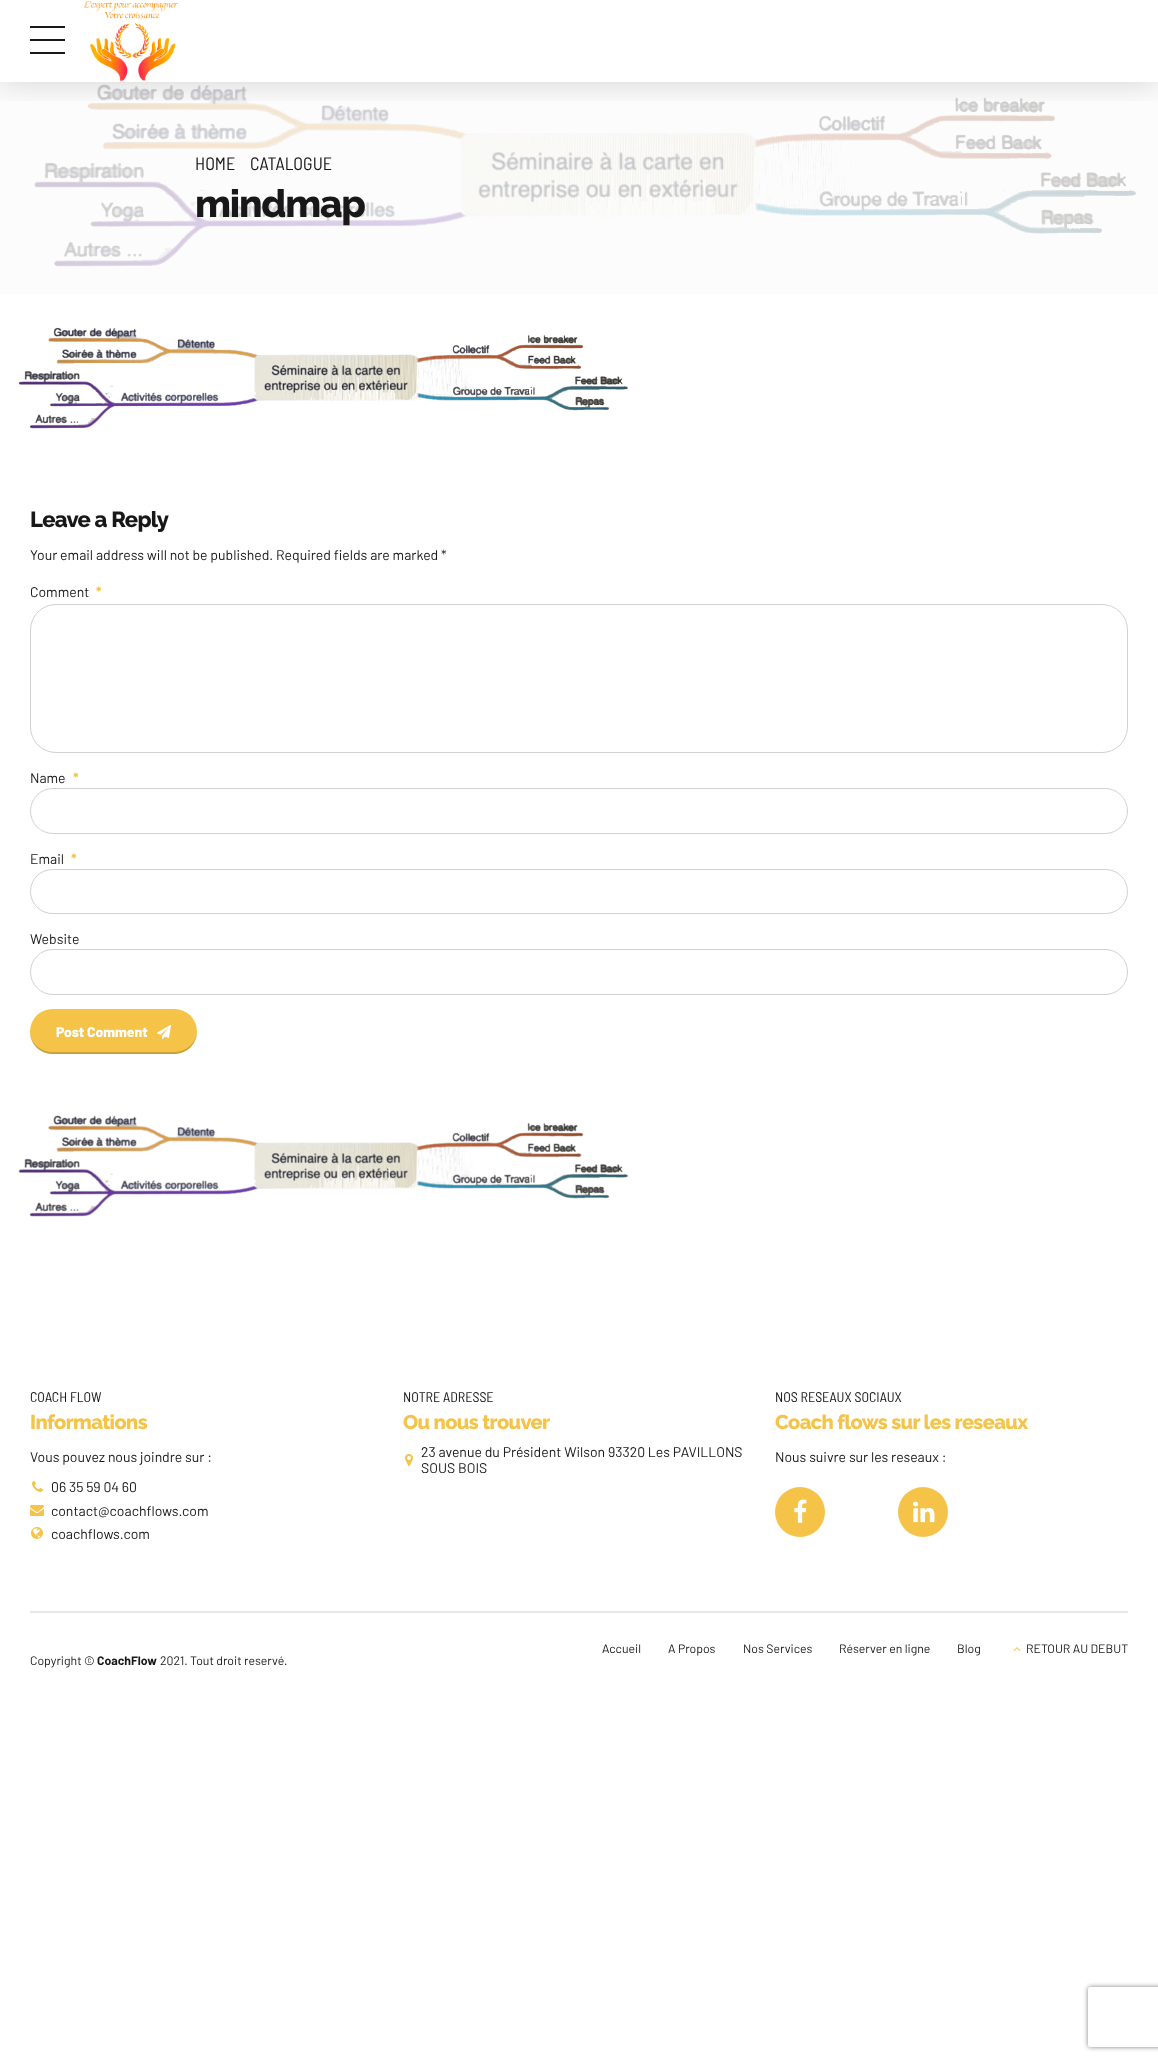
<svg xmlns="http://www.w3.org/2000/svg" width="1158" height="2061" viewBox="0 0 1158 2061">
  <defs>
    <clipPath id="clip1"><rect x="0" y="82" width="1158" height="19"/></clipPath>
    <clipPath id="clip2"><path d="M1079 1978H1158V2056H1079ZM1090 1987H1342C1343 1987 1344 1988 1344 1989V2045C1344 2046 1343 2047 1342 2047H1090C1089 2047 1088 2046 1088 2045V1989C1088 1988 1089 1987 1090 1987Z" clip-rule="evenodd"/></clipPath>
  </defs>
  <rect width="100%" height="100%" fill="rgb(255,255,255)"/>
  <rect x="0" y="82" width="1158" height="212" fill="rgb(252,252,252)"/>
  <image x="34" y="84" width="1102" height="183" href="pic2.png"/>
  <g clip-path="url(#clip1)">
    <rect x="0" y="0" width="1158" height="84" fill="rgba(0,0,0,0.15)" filter="blur(15px)"/>
  </g>
  <rect x="30" y="26" width="35" height="2" fill="rgb(24,24,24)"/>
  <rect x="30" y="39" width="35" height="2" fill="rgb(24,24,24)"/>
  <rect x="30" y="52" width="35" height="2" fill="rgb(24,24,24)"/>
  <image x="83" y="1" width="95" height="81" href="pic1.png"/>
  <g font-family="Barlow Semi Condensed" font-size="18" fill="rgb(24,24,24)">
    <text x="195" y="170">HOME</text>
    <text x="250" y="170">CATALOGUE</text>
  </g>
  <text x="195" y="217" font-family="Raleway" font-size="38.5" font-weight="800" letter-spacing="-1.25" fill="rgb(24,24,24)">mindmap</text>
  <image x="18" y="327" width="610" height="102" href="pic3.png"/>
  <text x="30" y="527" font-family="Raleway" font-size="22" font-weight="800" letter-spacing="-0.7" fill="rgb(24,24,24)">Leave a Reply</text>
  <g font-family="Barlow" font-size="14" fill="rgb(24,24,24)">
    <text x="30" y="560">Your email address will not be published. Required fields are marked *</text>
    <text x="30" y="597">Comment</text>
  </g>
  <text x="96" y="597" font-family="Barlow" font-size="14" font-weight="bold" fill="rgb(244,195,72)">*</text>
  <rect x="30.5" y="604.5" width="1097" height="148" rx="25.5" fill="none" stroke="rgb(209,209,209)"/>
  <text x="30" y="783" font-family="Barlow" font-size="14" fill="rgb(24,24,24)">Name</text>
  <text x="73" y="783" font-family="Barlow" font-size="14" font-weight="bold" fill="rgb(244,195,72)">*</text>
  <rect x="30.5" y="788.5" width="1097" height="45" rx="22.5" fill="none" stroke="rgb(209,209,209)"/>
  <text x="30" y="864" font-family="Barlow" font-size="14" fill="rgb(24,24,24)">Email</text>
  <text x="71" y="864" font-family="Barlow" font-size="14" font-weight="bold" fill="rgb(244,195,72)">*</text>
  <rect x="30.5" y="869.5" width="1097" height="44" rx="22" fill="none" stroke="rgb(209,209,209)"/>
  <text x="30" y="944" font-family="Barlow" font-size="14" fill="rgb(24,24,24)">Website</text>
  <rect x="30.5" y="949.5" width="1097" height="45" rx="22.5" fill="none" stroke="rgb(209,209,209)"/>
  <rect x="30" y="1009" width="167" height="45" rx="22.5" fill="rgb(244,195,72)"/>
  <path d="M30 1031V1032C30 1044 40 1054 52 1054H174C187 1054 197 1044 197 1032V1031C197 1042 187 1052 174 1052H52C40 1052 30 1042 30 1031Z" fill="rgba(24,24,24,0.2)"/>
  <text x="56" y="1037" font-family="Barlow" font-size="14" font-weight="800" fill="rgb(255,255,255)">Post Comment</text>
  <image x="157" y="1025" width="14" height="14" href="pic4.png"/>
  <image x="18" y="1115" width="611" height="102" href="pic5.png"/>
  <text x="30" y="1402" font-family="Barlow Semi Condensed" font-size="14" fill="rgb(24,24,24)">COACH FLOW</text>
  <text x="30" y="1429" font-family="Raleway" font-size="20" font-weight="800" letter-spacing="-0.6" fill="rgb(244,195,72)">Informations</text>
  <text x="30" y="1462" font-family="Barlow" font-size="14" fill="rgb(24,24,24)">Vous pouvez nous joindre sur :</text>
  <image x="32" y="1481" width="11" height="11" href="pic6.png"/>
  <text x="51" y="1492" font-family="Barlow" font-size="14" fill="rgb(24,24,24)">06 35 59 04 60</text>
  <image x="30" y="1505" width="14" height="11" href="pic7.png"/>
  <text x="51" y="1516" font-family="Barlow" font-size="14" fill="rgb(24,24,24)">contact@coachflows.com</text>
  <image x="31" y="1527" width="12" height="12" href="pic8.png"/>
  <text x="51" y="1539" font-family="Barlow" font-size="14" fill="rgb(24,24,24)">coachflows.com</text>
  <text x="403" y="1402" font-family="Barlow Semi Condensed" font-size="14" fill="rgb(24,24,24)">NOTRE ADRESSE</text>
  <text x="403" y="1429" font-family="Raleway" font-size="20" font-weight="800" letter-spacing="-0.6" fill="rgb(244,195,72)">Ou nous trouver</text>
  <image x="405" y="1454" width="8" height="12" href="pic9.png"/>
  <g font-family="Barlow" font-size="14" fill="rgb(24,24,24)">
    <text>
      <tspan x="421" y="1457">23 avenue du Président Wilson 93320 Les PAVILLONS</tspan>
      <tspan x="421" y="1473">SOUS BOIS</tspan>
    </text>
  </g>
  <text x="775" y="1402" font-family="Barlow Semi Condensed" font-size="14" fill="rgb(24,24,24)">NOS RESEAUX SOCIAUX</text>
  <text x="775" y="1429" font-family="Raleway" font-size="20" font-weight="800" letter-spacing="-0.6" fill="rgb(244,195,72)">Coach flows sur les reseaux</text>
  <text x="775" y="1462" font-family="Barlow" font-size="14" fill="rgb(24,24,24)">Nous suivre sur les reseaux :</text>
  <circle cx="800" cy="1512" r="25" fill="rgb(244,195,72)"/>
  <image x="794" y="1499" width="13" height="24" href="pic10.png"/>
  <circle cx="923" cy="1512" r="25" fill="rgb(244,195,72)"/>
  <image x="913" y="1501" width="22" height="22" href="pic11.png"/>
  <rect x="30" y="1611" width="1098" height="2" fill="rgb(232,232,232)"/>
  <g font-family="Barlow" font-size="12.25" fill="rgb(24,24,24)">
    <text x="602" y="1653">Accueil</text>
    <text x="668" y="1653">A Propos</text>
    <text x="743" y="1653">Nos Services</text>
    <text x="839" y="1653">Réserver en ligne</text>
    <text x="957" y="1653">Blog</text>
  </g>
  <image x="1013" y="1647" width="8" height="5" href="pic12.png"/>
  <g font-family="Barlow" font-size="12.25" fill="rgb(24,24,24)">
    <text x="1026" y="1653">RETOUR AU DEBUT</text>
    <text x="30" y="1665">Copyright ©</text>
  </g>
  <text x="97" y="1665" font-family="Barlow" font-size="12.25" font-weight="bold" fill="rgb(24,24,24)">CoachFlow</text>
  <text x="160" y="1665" font-family="Barlow" font-size="12.25" fill="rgb(24,24,24)">2021. Tout droit reservé.</text>
  <g clip-path="url(#clip2)">
    <rect x="1088" y="1987" width="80" height="60" rx="2" fill="rgb(128,128,128)" filter="blur(2.5px)"/>
  </g>
</svg>
